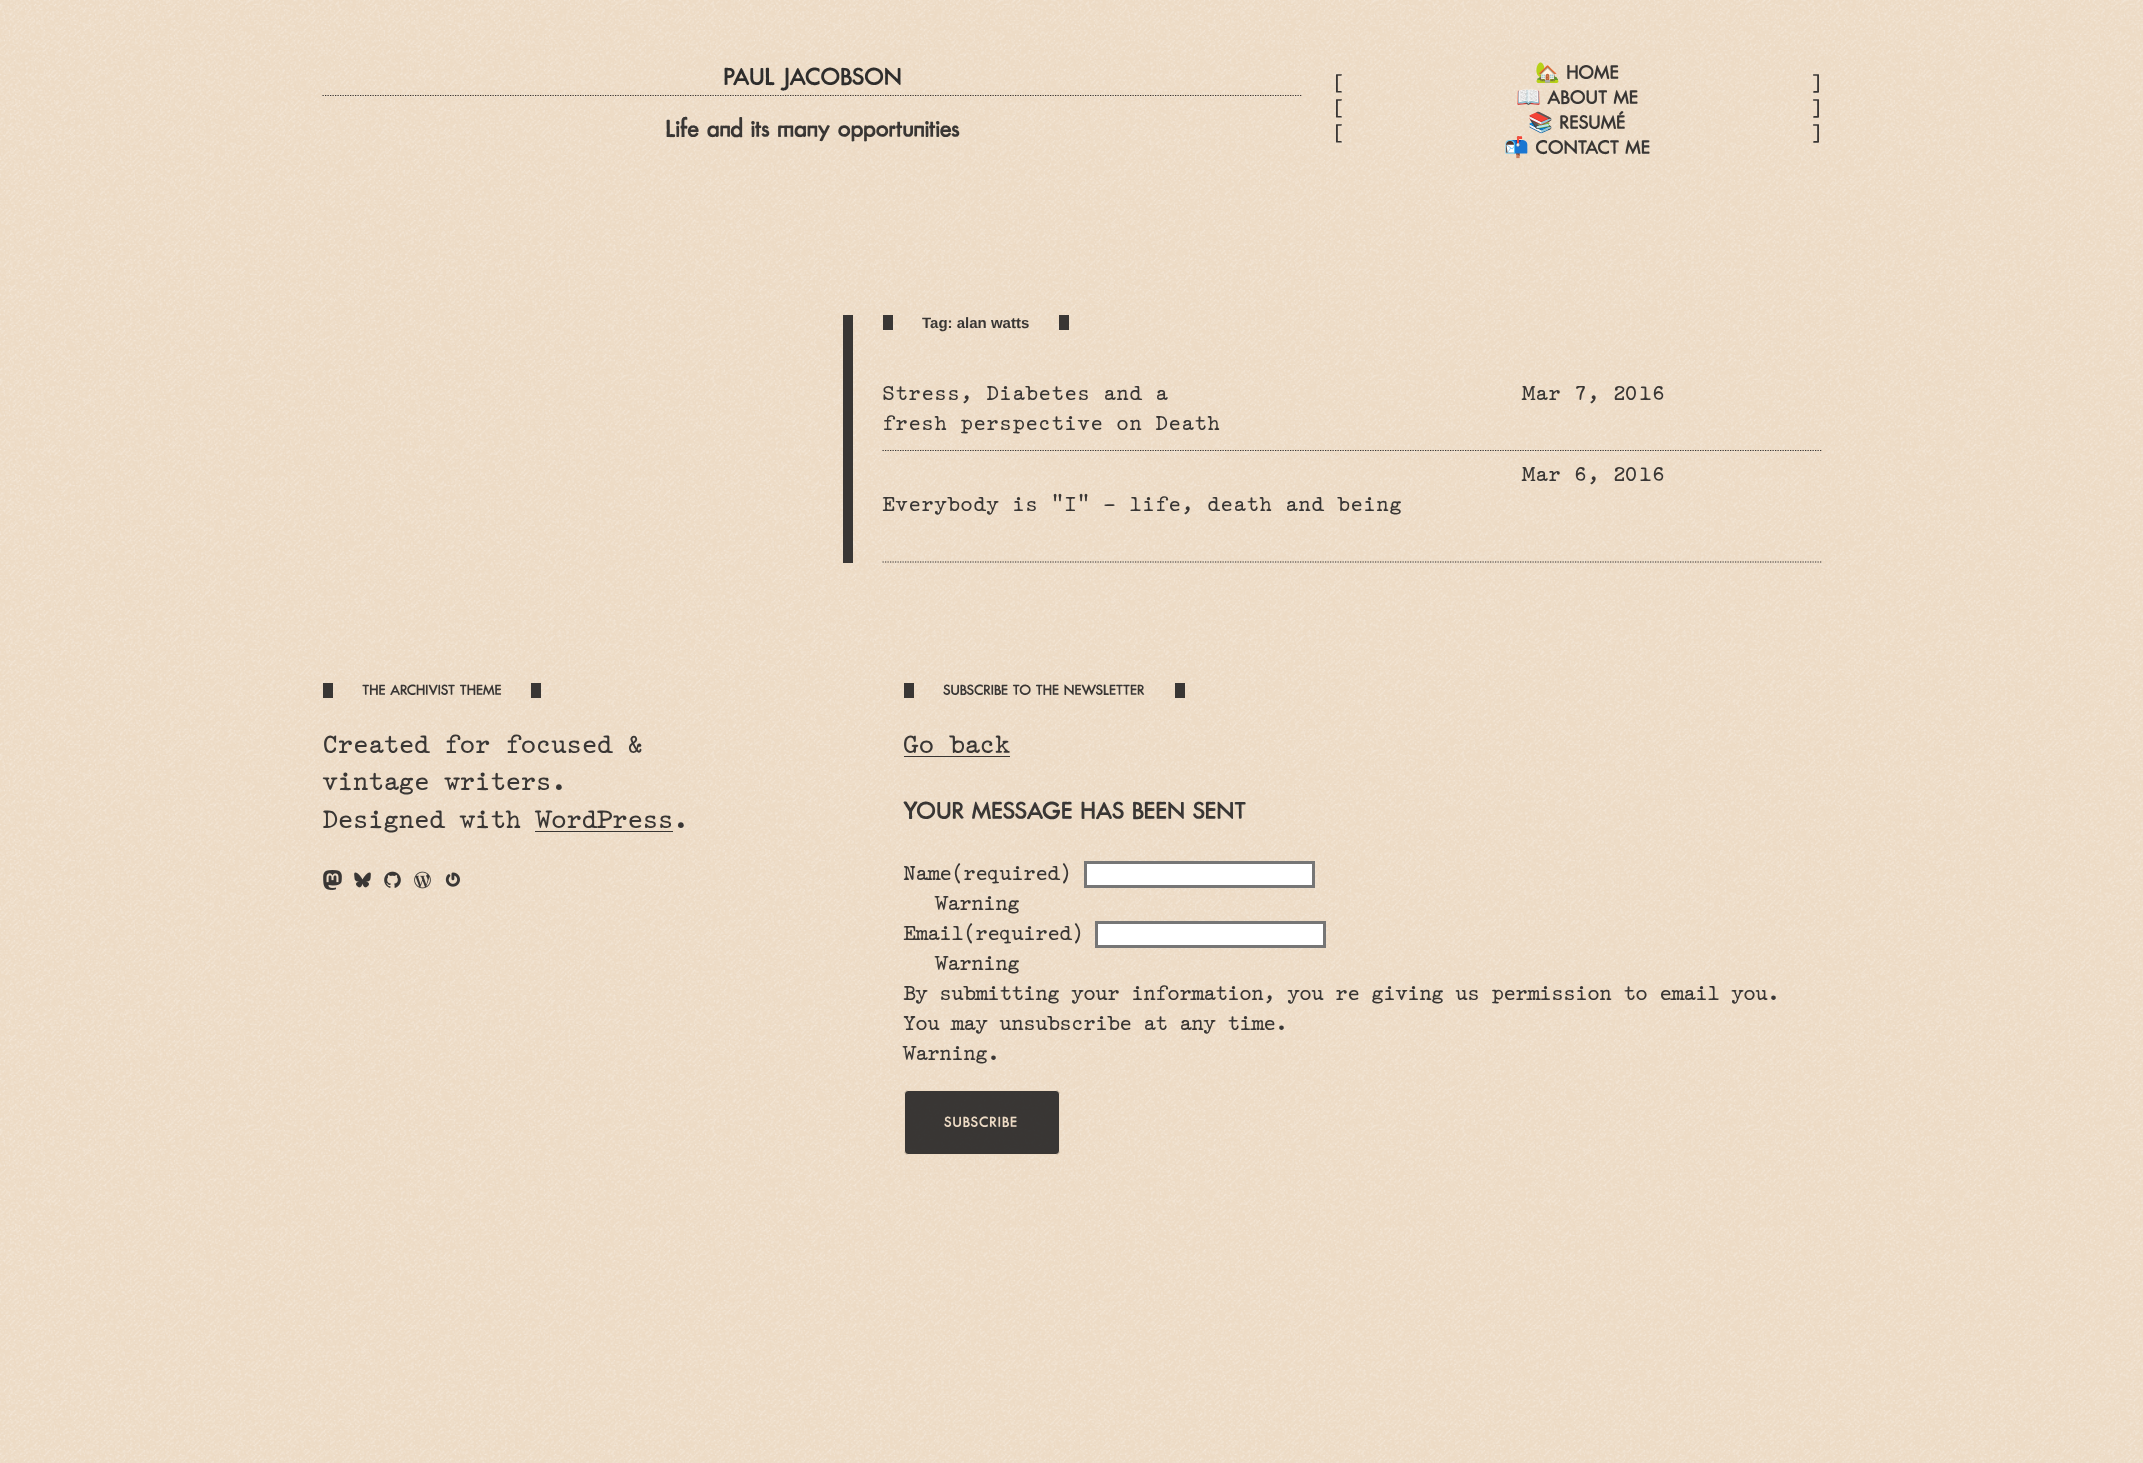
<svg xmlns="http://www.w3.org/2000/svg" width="2143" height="1463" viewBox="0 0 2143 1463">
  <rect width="100%" height="100%" fill="rgb(237,219,197)"/>
  <image x="0" y="0" width="2143" height="1463" href="pic1.png"/>
  <path d="M322.5 95.5H1302.5" fill="none" stroke="rgba(25,25,26,0.85)" stroke-width="1.2" stroke-dasharray="1.25 1.25"/>
  <text x="723" y="85" font-family="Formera" font-size="25" font-weight="bold" fill="rgb(46,45,44)">PAUL JACOBSON</text>
  <text x="665" y="137" font-family="Formera" font-size="25" font-weight="bold" fill="rgb(57,54,52)">Life and its many opportunities</text>
  <g font-family="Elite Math" font-size="20" letter-spacing="-1" fill="rgb(57,54,52)">
    <text>
      <tspan x="1332" y="90">[</tspan>
      <tspan x="1332" y="115">[</tspan>
      <tspan x="1332" y="140">[</tspan>
    </text>
  </g>
  <text x="1535" y="79" font-family="Noto Color Emoji" font-size="20" font-weight="bold" fill="rgb(57,54,52)">🏡</text>
  <text x="1566" y="79" font-family="Formera" font-size="20" font-weight="bold" fill="rgb(57,54,52)">HOME</text>
  <text x="1516" y="104" font-family="Noto Color Emoji" font-size="20" font-weight="bold" fill="rgb(57,54,52)">📖</text>
  <text x="1547" y="104" font-family="Formera" font-size="20" font-weight="bold" fill="rgb(57,54,52)">ABOUT ME</text>
  <text x="1528" y="129" font-family="Noto Color Emoji" font-size="20" font-weight="bold" fill="rgb(57,54,52)">📚</text>
  <text x="1559" y="129" font-family="Formera" font-size="20" font-weight="bold" fill="rgb(57,54,52)">RESUMÉ</text>
  <text x="1504" y="154" font-family="Noto Color Emoji" font-size="20" font-weight="bold" fill="rgb(57,54,52)">📬</text>
  <text x="1535" y="154" font-family="Formera" font-size="20" font-weight="bold" fill="rgb(57,54,52)">CONTACT ME</text>
  <g font-family="Elite Math" font-size="20" letter-spacing="-1" fill="rgb(57,54,52)">
    <text>
      <tspan x="1810" y="90">]</tspan>
      <tspan x="1810" y="115">]</tspan>
      <tspan x="1810" y="140">]</tspan>
    </text>
  </g>
  <rect x="843" y="315" width="10" height="248" fill="rgba(25,25,26,0.85)"/>
  <rect x="1059" y="315" width="10" height="15" fill="rgba(25,25,26,0.85)"/>
  <rect x="883" y="315" width="10" height="15" fill="rgba(25,25,26,0.85)"/>
  <text x="922" y="328" font-family="Liberation Sans" font-size="15" font-weight="bold" fill="rgb(57,54,52)">Tag: alan watts</text>
  <path d="M882.5 450.5H1822.5" fill="none" stroke="rgba(25,25,26,0.85)" stroke-width="1.2" stroke-dasharray="1.25 1.25"/>
  <g font-family="Elite Math" font-size="20" fill="rgb(57,54,52)">
    <text>
      <tspan x="882" y="400">Stress, Diabetes and a</tspan>
      <tspan x="882" y="430">fresh perspective on Death</tspan>
    </text>
    <text x="1522" y="400">Mar 7, 2016</text>
  </g>
  <path d="M882.5 562H1822.5" fill="none" stroke="rgba(25,25,26,0.85)" stroke-width="1.2" stroke-dasharray="1.25 1.25"/>
  <g font-family="Elite Math" font-size="20" fill="rgb(57,54,52)">
    <text x="1522" y="481">Mar 6, 2016</text>
    <text x="882" y="511">Everybody is “I” – life, death and being</text>
  </g>
  <rect x="531" y="683" width="10" height="15" fill="rgba(25,25,26,0.85)"/>
  <rect x="323" y="683" width="10" height="15" fill="rgba(25,25,26,0.85)"/>
  <text x="362" y="695" font-family="Formera" font-size="15" font-weight="bold" fill="rgb(57,54,52)">THE ARCHIVIST THEME</text>
  <g font-family="Elite Math" font-size="25" letter-spacing="-1" fill="rgb(57,54,52)">
    <text>
      <tspan x="322" y="753">Created for focused &amp;</tspan>
      <tspan x="322" y="790">vintage writers.</tspan>
      <tspan x="322" y="828">Designed with WordPress.</tspan>
    </text>
  </g>
  <rect x="535" y="831" width="138" height="1" fill="rgba(25,25,26,0.85)"/>
  <image x="323" y="870" width="19" height="20" href="pic2.png"/>
  <image x="354" y="872" width="17" height="16" href="pic3.png"/>
  <image x="384" y="871" width="17" height="17" href="pic4.png"/>
  <image x="414" y="871" width="17" height="18" href="pic5.png"/>
  <image x="445" y="872" width="15" height="15" href="pic6.png"/>
  <rect x="1175" y="683" width="10" height="15" fill="rgba(25,25,26,0.85)"/>
  <rect x="904" y="683" width="10" height="15" fill="rgba(25,25,26,0.85)"/>
  <text x="943" y="695" font-family="Formera" font-size="15" font-weight="bold" fill="rgb(57,54,52)">SUBSCRIBE TO THE NEWSLETTER</text>
  <text x="903" y="753" font-family="Elite Math" font-size="25" letter-spacing="-1" fill="rgb(57,54,52)">Go back</text>
  <rect x="904" y="756" width="106" height="1" fill="rgba(25,25,26,0.85)"/>
  <text x="903" y="819" font-family="Formera" font-size="25" font-weight="bold" fill="rgb(57,54,52)">YOUR MESSAGE HAS BEEN SENT</text>
  <g font-family="Elite Math" font-size="20" letter-spacing="-1" fill="rgb(57,54,52)">
    <text x="903" y="880">Name</text>
    <text x="951" y="880">(required)</text>
  </g>
  <rect x="1085.5" y="862.5" width="228" height="24" fill="rgb(255,255,255)" stroke="rgb(118,118,118)" stroke-width="3"/>
  <g font-family="Elite Math" font-size="20" letter-spacing="-1" fill="rgb(57,54,52)">
    <text x="935" y="910">Warning</text>
    <text x="903" y="940">Email(required)</text>
  </g>
  <rect x="1096.5" y="922.5" width="228" height="24" fill="rgb(255,255,255)" stroke="rgb(118,118,118)" stroke-width="3"/>
  <g font-family="Elite Math" font-size="20" letter-spacing="-1" fill="rgb(57,54,52)">
    <text x="935" y="970">Warning</text>
    <text>
      <tspan x="903" y="1000">By submitting your information, you’re giving us permission to email you.</tspan>
      <tspan x="903" y="1030">You may unsubscribe at any time.</tspan>
      <tspan x="903" y="1060">Warning.</tspan>
    </text>
  </g>
  <rect x="904.5" y="1090.5" width="155" height="64" rx="3.5" fill="rgba(25,25,26,0.85)" stroke="rgb(237,219,197)"/>
  <text x="944" y="1127" font-family="Formera" font-size="15" font-weight="bold" letter-spacing="1" fill="rgb(237,219,197)">SUBSCRIBE</text>
</svg>
